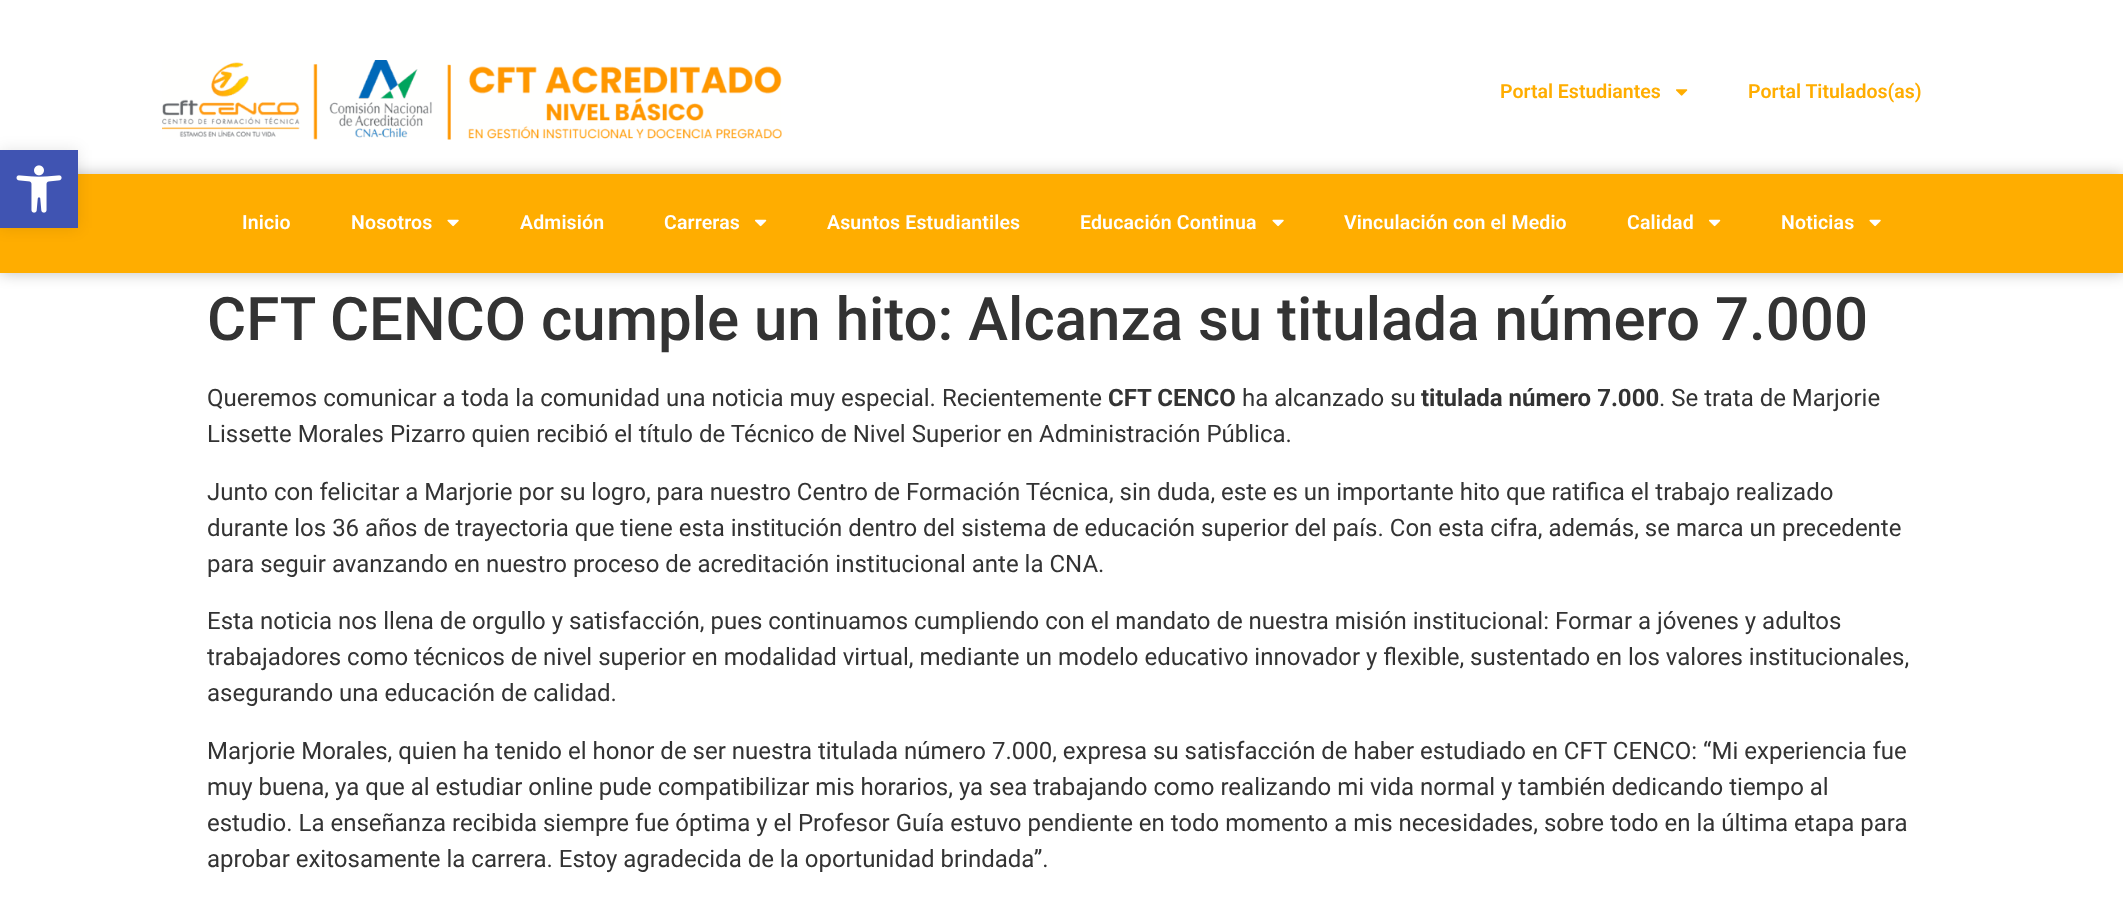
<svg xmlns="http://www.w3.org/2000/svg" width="2123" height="904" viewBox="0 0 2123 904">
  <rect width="100%" height="100%" fill="rgb(255,255,255)"/>
  <rect x="0" y="174" width="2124" height="99" fill="rgba(0,0,0,0.25)" filter="blur(7.5px)"/>
  <rect x="0" y="174" width="2123" height="99" fill="rgb(255,173,0)"/>
  <rect x="0" y="150" width="78" height="78" fill="rgba(0,0,0,0.1)" filter="blur(7.5px)"/>
  <rect x="0" y="150" width="78" height="78" fill="rgb(64,84,178)"/>
  <image x="16" y="165" width="46" height="48" href="pic1.png"/>
  <image x="162" y="60" width="620" height="80" href="pic2.png"/>
  <text x="1500" y="98" font-family="Roboto" font-size="19.5" font-weight="600" fill="rgb(255,173,0)">Portal Estudiantes</text>
  <image x="1676" y="89" width="12" height="7" href="pic3.png"/>
  <text x="1748" y="98" font-family="Roboto" font-size="19.5" font-weight="600" fill="rgb(255,173,0)">Portal Titulados(as)</text>
  <g font-family="Roboto" font-size="19.5" font-weight="600" letter-spacing="0.15" fill="rgb(255,255,255)">
    <text x="242" y="229">Inicio</text>
    <text x="351" y="229">Nosotros</text>
  </g>
  <image x="447" y="219" width="12" height="8" href="pic4.png"/>
  <g font-family="Roboto" font-size="19.5" font-weight="600" letter-spacing="0.15" fill="rgb(255,255,255)">
    <text x="520" y="229">Admisión</text>
    <text x="664" y="229">Carreras</text>
  </g>
  <image x="755" y="219" width="12" height="8" href="pic5.png"/>
  <g font-family="Roboto" font-size="19.5" font-weight="600" letter-spacing="0.15" fill="rgb(255,255,255)">
    <text x="827" y="229">Asuntos Estudiantiles</text>
    <text x="1080" y="229">Educación Continua</text>
  </g>
  <image x="1272" y="219" width="12" height="8" href="pic4.png"/>
  <g font-family="Roboto" font-size="19.5" font-weight="600" letter-spacing="0.15" fill="rgb(255,255,255)">
    <text x="1344" y="229">Vinculación con el Medio</text>
    <text x="1627" y="229">Calidad</text>
  </g>
  <image x="1709" y="219" width="12" height="8" href="pic5.png"/>
  <text x="1781" y="229" font-family="Roboto" font-size="19.5" font-weight="600" letter-spacing="0.15" fill="rgb(255,255,255)">Noticias</text>
  <image x="1869" y="219" width="12" height="8" href="pic4.png"/>
  <text x="207" y="340" font-family="Roboto" font-size="60" font-weight="500" fill="rgb(51,51,51)">CFT CENCO cumple un hito: Alcanza su titulada número 7.000</text>
  <text x="207" y="406" font-family="Roboto" font-size="24" fill="rgb(51,51,51)">Queremos comunicar a toda la comunidad una noticia muy especial. Recientemente</text>
  <text x="1108" y="406" font-family="Roboto" font-size="24" font-weight="bold" fill="rgb(51,51,51)">CFT CENCO</text>
  <text x="1242" y="406" font-family="Roboto" font-size="24" fill="rgb(51,51,51)">ha alcanzado su</text>
  <text x="1421" y="406" font-family="Roboto" font-size="24" font-weight="bold" fill="rgb(51,51,51)">titulada número 7.000</text>
  <g font-family="Roboto" font-size="24" fill="rgb(51,51,51)">
    <text x="1659" y="406">. Se trata de Marjorie</text>
    <text x="207" y="442">Lissette Morales Pizarro quien recibió el título de Técnico de Nivel Superior en Administración Pública.</text>
    <text>
      <tspan x="207" y="500">Junto con felicitar a Marjorie por su logro, para nuestro Centro de Formación Técnica, sin duda, este es un importante hito que ratifica el trabajo realizado</tspan>
      <tspan x="207" y="536">durante los 36 años de trayectoria que tiene esta institución dentro del sistema de educación superior del país. Con esta cifra, además, se marca un precedente</tspan>
      <tspan x="207" y="572">para seguir avanzando en nuestro proceso de acreditación institucional ante la CNA.</tspan>
    </text>
    <text>
      <tspan x="207" y="629">Esta noticia nos llena de orgullo y satisfacción, pues continuamos cumpliendo con el mandato de nuestra misión institucional: Formar a jóvenes y adultos</tspan>
      <tspan x="207" y="665">trabajadores como técnicos de nivel superior en modalidad virtual, mediante un modelo educativo innovador y flexible, sustentado en los valores institucionales,</tspan>
      <tspan x="207" y="701">asegurando una educación de calidad.</tspan>
    </text>
    <text>
      <tspan x="207" y="759">Marjorie Morales, quien ha tenido el honor de ser nuestra titulada número 7.000, expresa su satisfacción de haber estudiado en CFT CENCO: “Mi experiencia fue</tspan>
      <tspan x="207" y="795">muy buena, ya que al estudiar online pude compatibilizar mis horarios, ya sea trabajando como realizando mi vida normal y también dedicando tiempo al</tspan>
      <tspan x="207" y="831">estudio. La enseñanza recibida siempre fue óptima y el Profesor Guía estuvo pendiente en todo momento a mis necesidades, sobre todo en la última etapa para</tspan>
      <tspan x="207" y="867">aprobar exitosamente la carrera. Estoy agradecida de la oportunidad brindada”.</tspan>
    </text>
  </g>
</svg>
